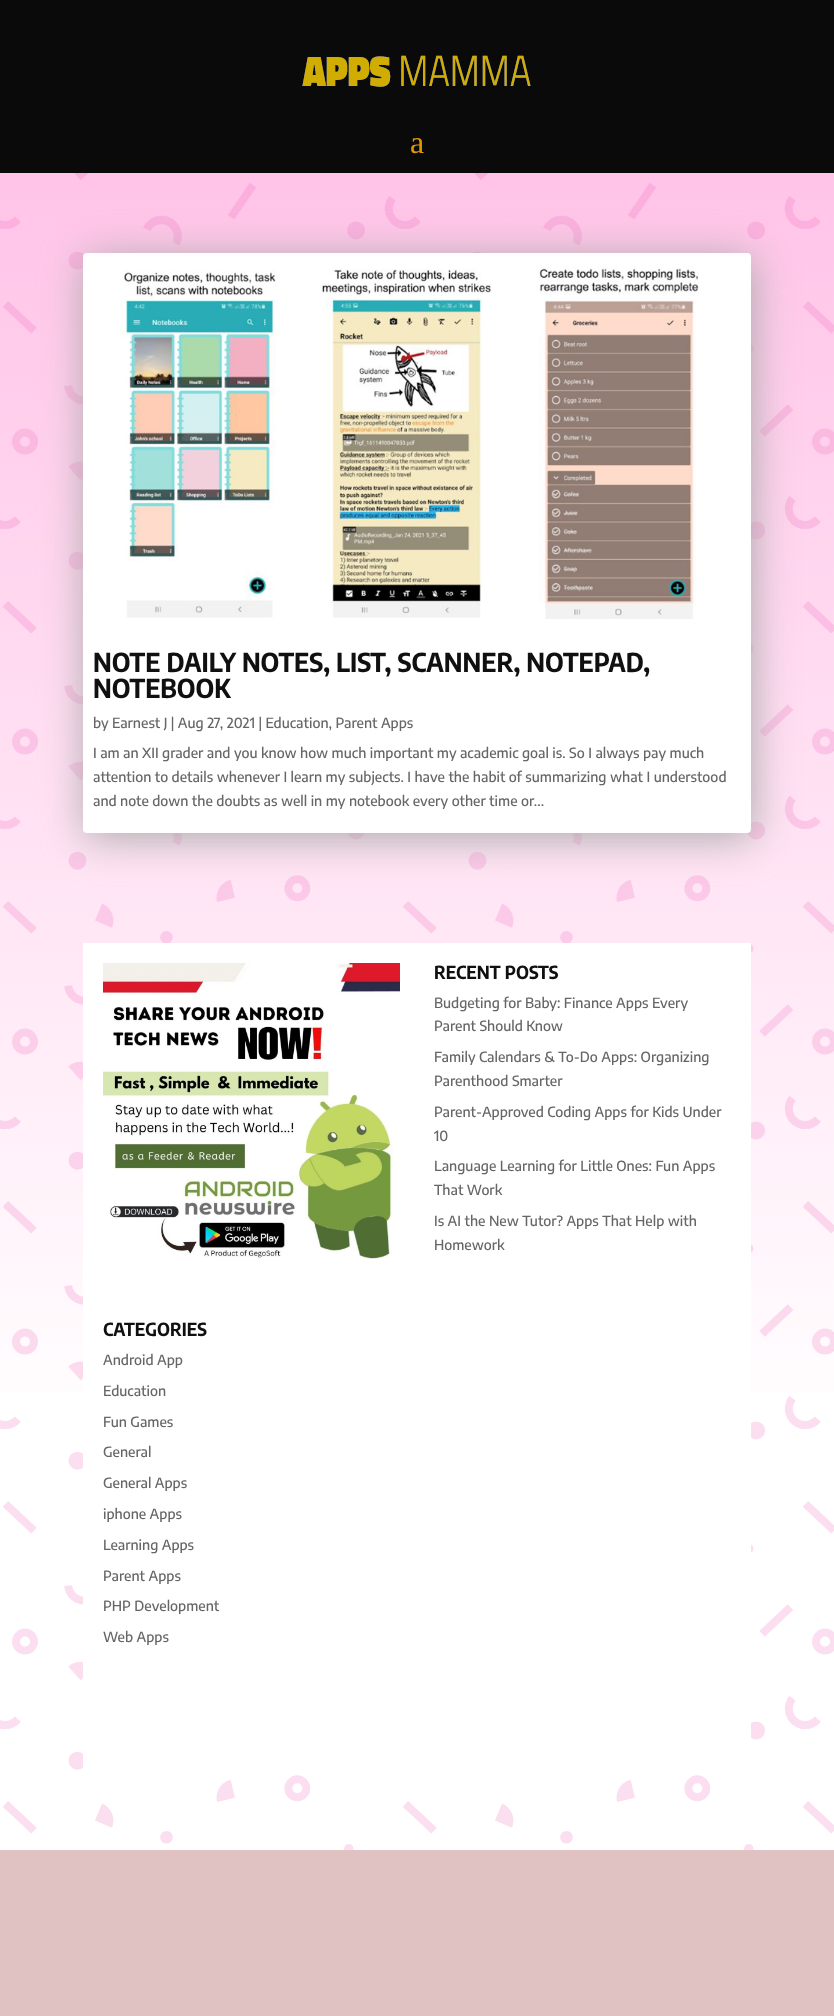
<svg xmlns="http://www.w3.org/2000/svg" width="834" height="2016" viewBox="0 0 834 2016">
  <defs>
    <linearGradient id="g1" gradientUnits="userSpaceOnUse" x1="417" y1="1850" x2="417" y2="173"><stop offset="0.24" stop-color="rgb(255,255,255)"/><stop offset="1" stop-color="rgb(255,196,232)"/></linearGradient>
  </defs>
  <rect width="100%" height="100%" fill="rgb(255,255,255)"/>
  <rect x="0" y="0" width="834" height="173" fill="rgb(10,10,10)"/>
  <image x="302" y="55" width="229" height="32" href="pic1.png"/>
  <text x="410" y="153" font-family="Liberation Serif" font-size="32" fill="rgb(224,153,0)">a</text>
  <rect x="0" y="173" width="834" height="1220" fill="url(#g1)"/>
  <image x="0" y="173" width="834" height="1677" href="pic2.png"/>
  <rect x="85" y="258" width="668" height="580" rx="4" fill="rgb(170,170,170)" filter="blur(20px)"/>
  <rect x="83" y="253" width="668" height="580" rx="4" fill="rgb(255,255,255)"/>
  <image x="120" y="266" width="579" height="353" href="pic3.png"/>
  <g font-family="Encode Sans Semi Condensed" font-size="26" font-weight="bold" fill="rgb(16,16,16)">
    <text>
      <tspan x="93" y="672">NOTE DAILY NOTES, LIST, SCANNER, NOTEPAD,</tspan>
      <tspan x="93" y="698">NOTEBOOK</tspan>
    </text>
  </g>
  <g font-family="Encode Sans Condensed" font-size="14" font-weight="500" fill="rgb(102,102,102)">
    <text x="93" y="728">by Earnest J | Aug 27, 2021 | Education, Parent Apps</text>
    <text>
      <tspan x="93" y="758">I am an XII grader and you know how much important my academic goal is. So I always pay much</tspan>
      <tspan x="93" y="782">attention to details whenever I learn my subjects. I have the habit of summarizing what I understood</tspan>
      <tspan x="93" y="806">and note down the doubts as well in my notebook every other time or...</tspan>
    </text>
  </g>
  <rect x="83" y="943" width="668" height="827" fill="rgb(255,255,255)"/>
  <image x="103" y="963" width="297" height="296" href="pic4.png"/>
  <text x="434" y="979" font-family="Encode Sans Semi Condensed" font-size="18" font-weight="bold" fill="rgb(16,16,16)">RECENT POSTS</text>
  <g font-family="Encode Sans Condensed" font-size="14" font-weight="500" fill="rgb(102,102,102)">
    <text>
      <tspan x="434" y="1008">Budgeting for Baby: Finance Apps Every</tspan>
      <tspan x="434" y="1031">Parent Should Know</tspan>
    </text>
    <text>
      <tspan x="434" y="1062">Family Calendars &amp; To-Do Apps: Organizing</tspan>
      <tspan x="434" y="1086">Parenthood Smarter</tspan>
    </text>
    <text>
      <tspan x="434" y="1117">Parent-Approved Coding Apps for Kids Under</tspan>
      <tspan x="434" y="1141">10</tspan>
    </text>
    <text>
      <tspan x="434" y="1171">Language Learning for Little Ones: Fun Apps</tspan>
      <tspan x="434" y="1195">That Work</tspan>
    </text>
    <text>
      <tspan x="434" y="1226">Is AI the New Tutor? Apps That Help with</tspan>
      <tspan x="434" y="1250">Homework</tspan>
    </text>
  </g>
  <text x="103" y="1336" font-family="Encode Sans Semi Condensed" font-size="18" font-weight="bold" fill="rgb(16,16,16)">CATEGORIES</text>
  <g font-family="Encode Sans Condensed" font-size="14" font-weight="500" fill="rgb(102,102,102)">
    <text x="103" y="1365">Android App</text>
    <text x="103" y="1396">Education</text>
    <text x="103" y="1427">Fun Games</text>
    <text x="103" y="1457">General</text>
    <text x="103" y="1488">General Apps</text>
    <text x="103" y="1519">iphone Apps</text>
    <text x="103" y="1550">Learning Apps</text>
    <text x="103" y="1581">Parent Apps</text>
    <text x="103" y="1611">PHP Development</text>
    <text x="103" y="1642">Web Apps</text>
  </g>
  <rect x="0" y="1850" width="834" height="166" fill="rgb(225,194,195)"/>
</svg>
